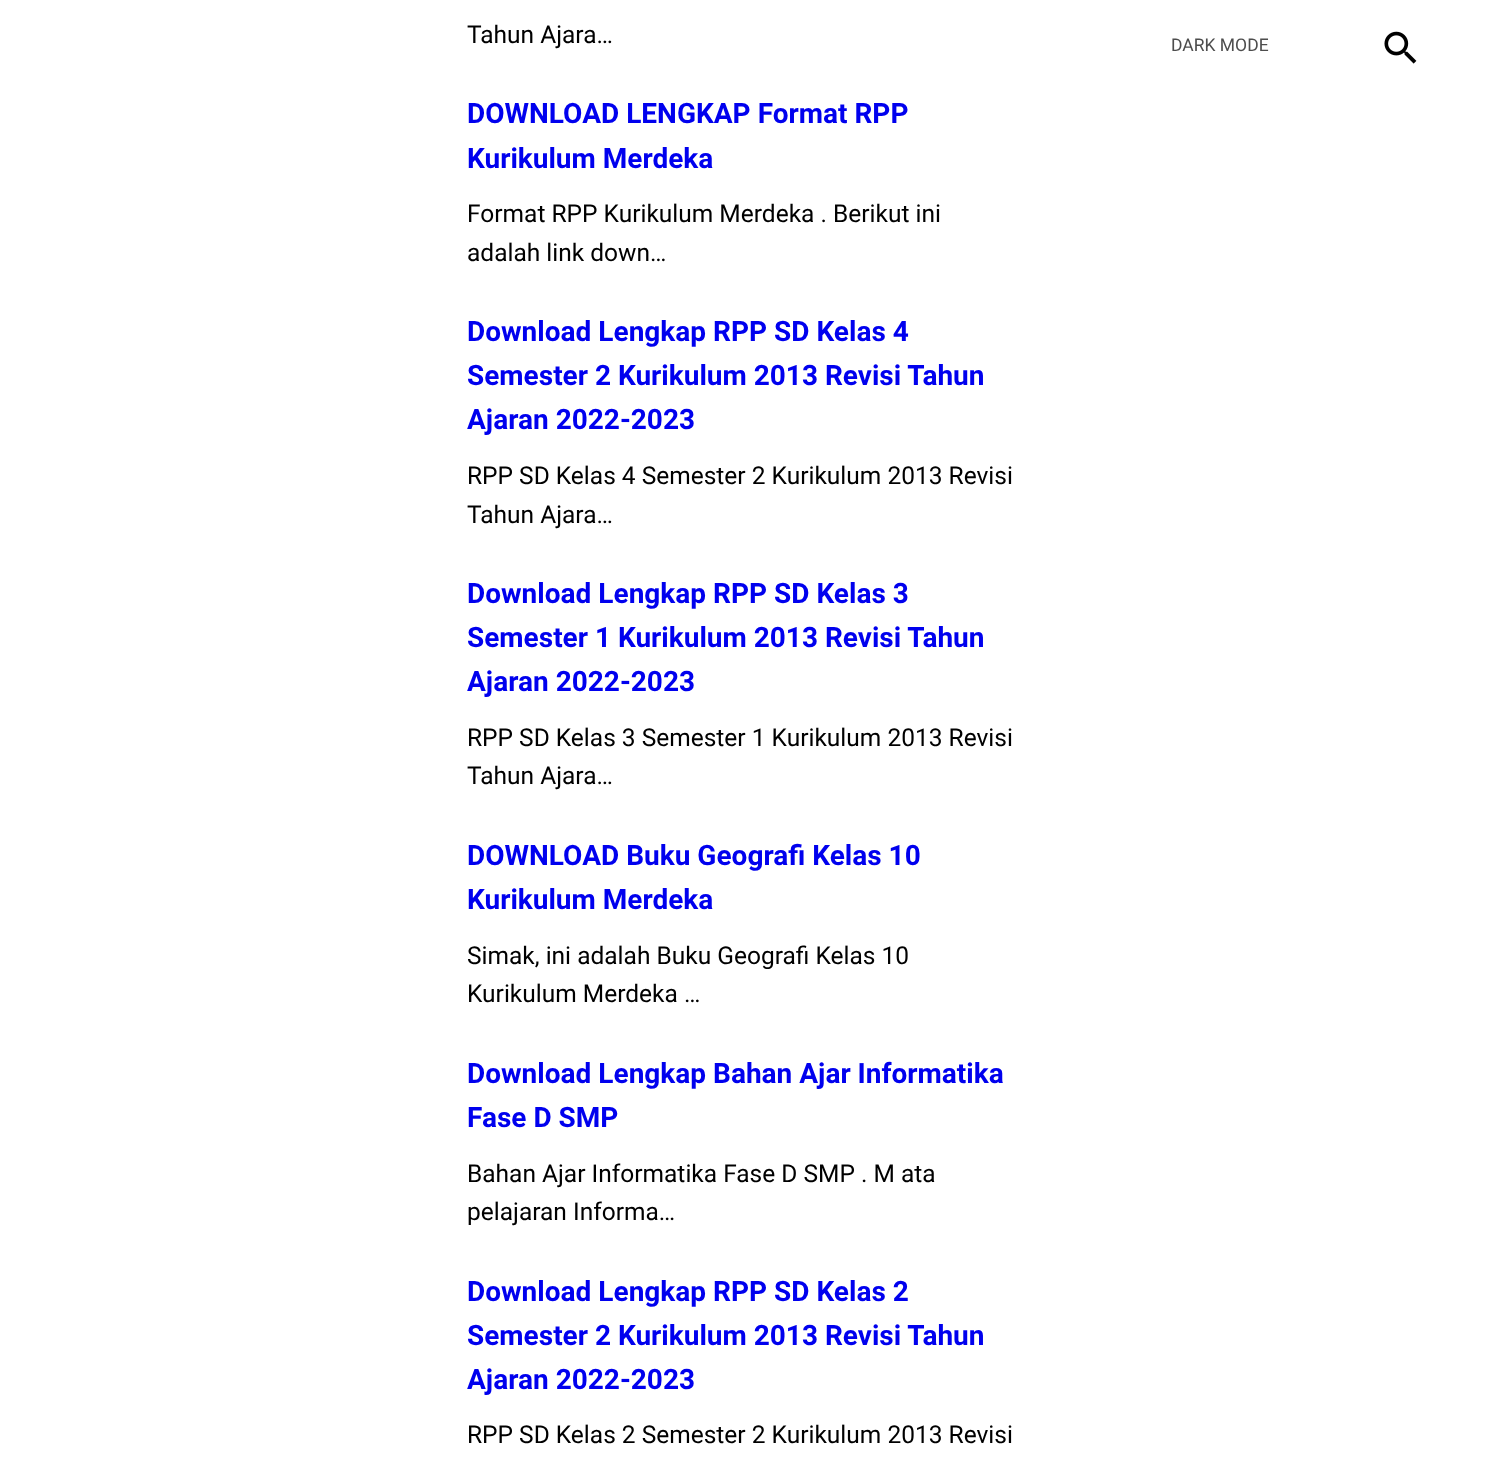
<svg xmlns="http://www.w3.org/2000/svg" width="1485" height="1474" viewBox="0 0 1485 1474">
  <rect width="100%" height="100%" fill="rgb(255,255,255)"/>
  <text x="467" y="43" font-family="Roboto" font-size="24.5" fill="rgb(0,0,0)">Tahun Ajara…</text>
  <g font-family="Roboto" font-size="28" font-weight="bold" fill="rgb(0,0,238)">
    <text>
      <tspan x="467" y="123">DOWNLOAD LENGKAP Format RPP</tspan>
      <tspan x="467" y="168">Kurikulum Merdeka</tspan>
    </text>
  </g>
  <g font-family="Roboto" font-size="24.5" fill="rgb(0,0,0)">
    <text>
      <tspan x="467" y="222">Format RPP Kurikulum Merdeka . Berikut ini</tspan>
      <tspan x="467" y="261">adalah link down…</tspan>
    </text>
  </g>
  <g font-family="Roboto" font-size="28" font-weight="bold" fill="rgb(0,0,238)">
    <text>
      <tspan x="467" y="341">Download Lengkap RPP SD Kelas 4</tspan>
      <tspan x="467" y="385">Semester 2 Kurikulum 2013 Revisi Tahun</tspan>
      <tspan x="467" y="429">Ajaran 2022-2023</tspan>
    </text>
  </g>
  <g font-family="Roboto" font-size="24.5" fill="rgb(0,0,0)">
    <text>
      <tspan x="467" y="484">RPP SD Kelas 4 Semester 2 Kurikulum 2013 Revisi</tspan>
      <tspan x="467" y="523">Tahun Ajara…</tspan>
    </text>
  </g>
  <g font-family="Roboto" font-size="28" font-weight="bold" fill="rgb(0,0,238)">
    <text>
      <tspan x="467" y="603">Download Lengkap RPP SD Kelas 3</tspan>
      <tspan x="467" y="647">Semester 1 Kurikulum 2013 Revisi Tahun</tspan>
      <tspan x="467" y="691">Ajaran 2022-2023</tspan>
    </text>
  </g>
  <g font-family="Roboto" font-size="24.5" fill="rgb(0,0,0)">
    <text>
      <tspan x="467" y="746">RPP SD Kelas 3 Semester 1 Kurikulum 2013 Revisi</tspan>
      <tspan x="467" y="784">Tahun Ajara…</tspan>
    </text>
  </g>
  <g font-family="Roboto" font-size="28" font-weight="bold" fill="rgb(0,0,238)">
    <text>
      <tspan x="467" y="865">DOWNLOAD Buku Geografi Kelas 10</tspan>
      <tspan x="467" y="909">Kurikulum Merdeka</tspan>
    </text>
  </g>
  <g font-family="Roboto" font-size="24.5" fill="rgb(0,0,0)">
    <text>
      <tspan x="467" y="964">Simak, ini adalah Buku Geografi Kelas 10</tspan>
      <tspan x="467" y="1002">Kurikulum Merdeka …</tspan>
    </text>
  </g>
  <g font-family="Roboto" font-size="28" font-weight="bold" fill="rgb(0,0,238)">
    <text>
      <tspan x="467" y="1083">Download Lengkap Bahan Ajar Informatika</tspan>
      <tspan x="467" y="1127">Fase D SMP</tspan>
    </text>
  </g>
  <g font-family="Roboto" font-size="24.5" fill="rgb(0,0,0)">
    <text>
      <tspan x="467" y="1182">Bahan Ajar Informatika Fase D SMP . M ata</tspan>
      <tspan x="467" y="1220">pelajaran Informa…</tspan>
    </text>
  </g>
  <g font-family="Roboto" font-size="28" font-weight="bold" fill="rgb(0,0,238)">
    <text>
      <tspan x="467" y="1301">Download Lengkap RPP SD Kelas 2</tspan>
      <tspan x="467" y="1345">Semester 2 Kurikulum 2013 Revisi Tahun</tspan>
      <tspan x="467" y="1389">Ajaran 2022-2023</tspan>
    </text>
  </g>
  <text x="467" y="1443" font-family="Roboto" font-size="24.5" fill="rgb(0,0,0)">RPP SD Kelas 2 Semester 2 Kurikulum 2013 Revisi</text>
  <text x="1171" y="51" font-family="Roboto" font-size="17.5" fill="rgb(77,77,77)">DARK MODE</text>
  <image x="1384" y="31" width="33" height="33" href="pic1.png"/>
</svg>
